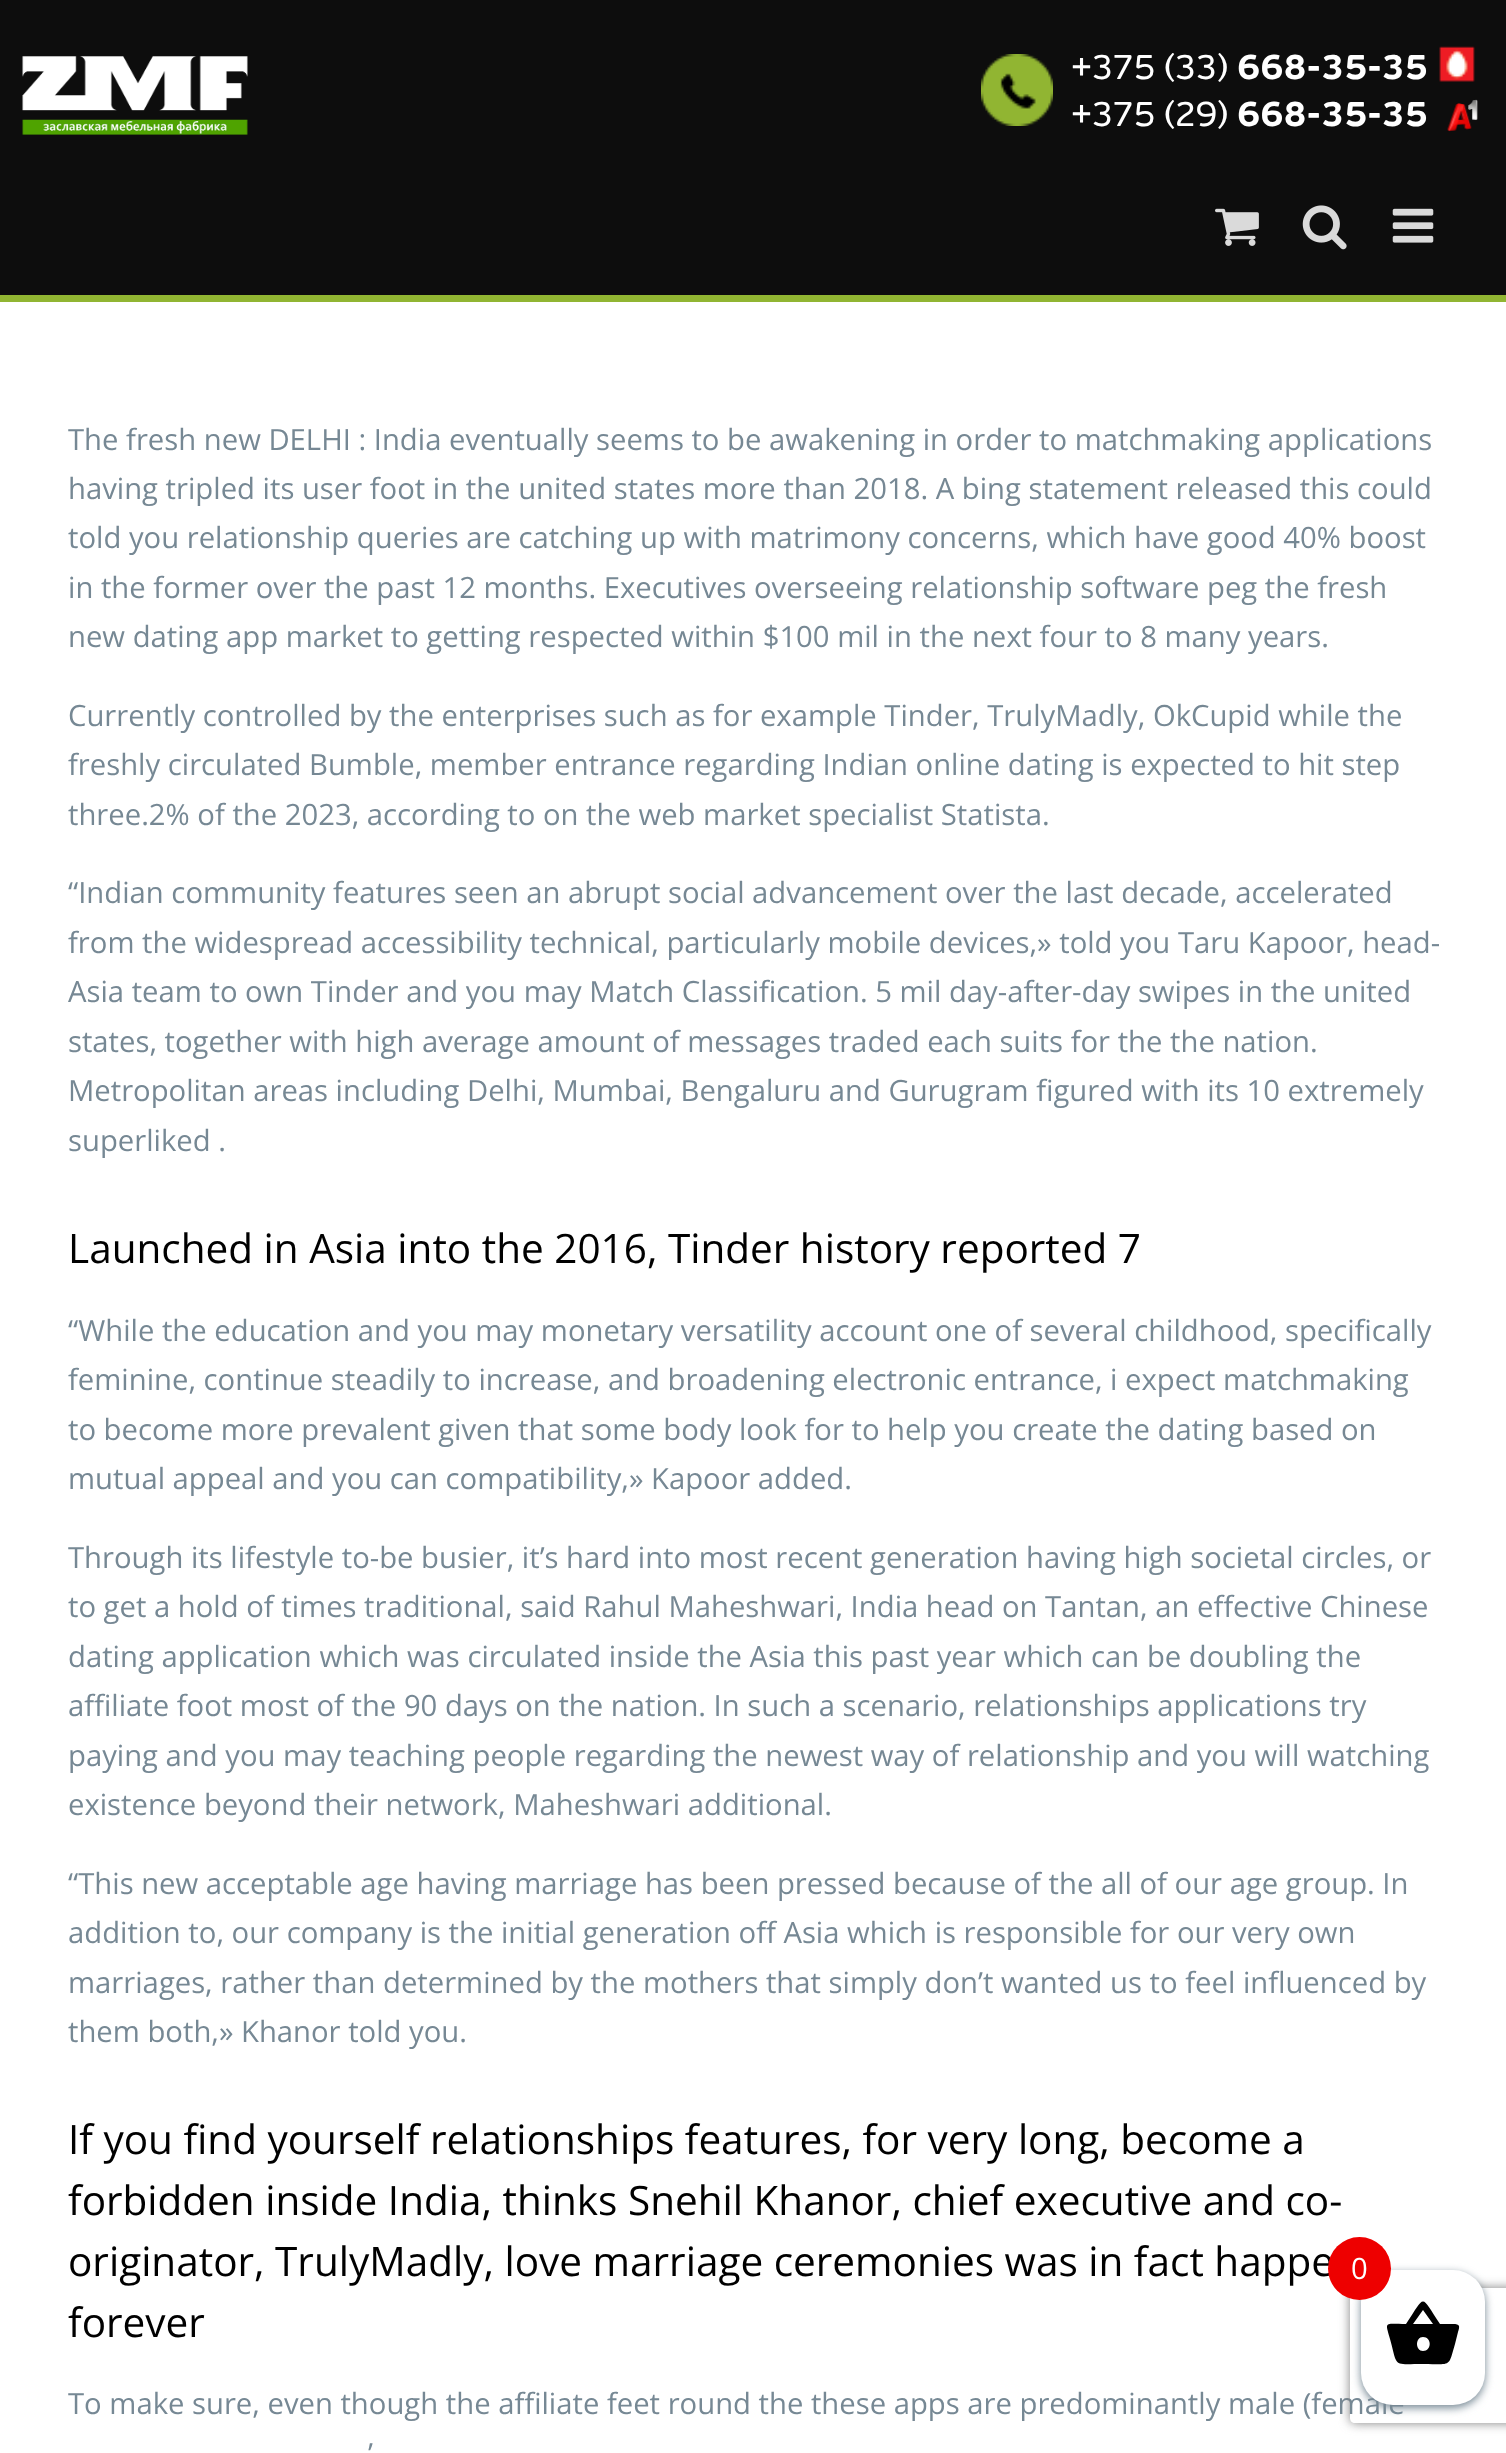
<svg xmlns="http://www.w3.org/2000/svg" width="1506" height="2453" viewBox="0 0 1506 2453">
  <defs>
    <clipPath id="clip1"><path d="M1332 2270H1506V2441H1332ZM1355 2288H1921C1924 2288 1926 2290 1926 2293V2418C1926 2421 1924 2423 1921 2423H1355C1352 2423 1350 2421 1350 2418V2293C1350 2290 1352 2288 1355 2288Z" clip-rule="evenodd"/></clipPath>
  </defs>
  <rect width="100%" height="100%" fill="rgb(255,255,255)"/>
  <rect x="0" y="0" width="1506" height="295" fill="rgb(13,13,13)"/>
  <image x="22" y="56" width="226" height="79" href="pic1.png"/>
  <image x="981" y="54" width="72" height="72" href="pic2.png"/>
  <text x="1071" y="79" font-family="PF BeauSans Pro" font-size="36" fill="rgb(255,255,255)">+375 (33)</text>
  <text x="1237" y="79" font-family="PF BeauSans Pro" font-size="36" font-weight="bold" fill="rgb(255,255,255)">668-35-35</text>
  <image x="1439" y="46" width="36" height="36" href="pic3.png"/>
  <text x="1071" y="126" font-family="PF BeauSans Pro" font-size="36" fill="rgb(255,255,255)">+375 (29)</text>
  <text x="1237" y="126" font-family="PF BeauSans Pro" font-size="36" font-weight="bold" fill="rgb(255,255,255)">668-35-35</text>
  <image x="1447" y="99" width="31" height="33" href="pic4.png"/>
  <rect x="0" y="295" width="1506" height="7" fill="rgb(145,181,50)"/>
  <image x="1215" y="208" width="44" height="38" href="pic5.png"/>
  <image x="1302" y="205" width="45" height="45" href="pic6.png"/>
  <image x="1392" y="208" width="42" height="35" href="pic7.png"/>
  <g font-family="Open Sans" font-size="29.25" fill="rgb(118,136,148)">
    <text>
      <tspan x="68" y="450">The fresh new DELHI : India eventually seems to be awakening in order to matchmaking applications</tspan>
      <tspan x="68" y="499">having tripled its user foot in the united states more than 2018. A bing statement released this could</tspan>
      <tspan x="68" y="548">told you relationship queries are catching up with matrimony concerns, which have good 40% boost</tspan>
      <tspan x="68" y="598">in the former over the past 12 months. Executives overseeing relationship software peg the fresh</tspan>
      <tspan x="68" y="647">new dating app market to getting respected within $100 mil in the next four to 8 many years.</tspan>
    </text>
    <text>
      <tspan x="68" y="726">Currently controlled by the enterprises such as for example Tinder, TrulyMadly, OkCupid while the</tspan>
      <tspan x="68" y="775">freshly circulated Bumble, member entrance regarding Indian online dating is expected to hit step</tspan>
      <tspan x="68" y="825">three.2% of the 2023, according to on the web market specialist Statista.</tspan>
    </text>
    <text>
      <tspan x="68" y="903">“Indian community features seen an abrupt social advancement over the last decade, accelerated</tspan>
      <tspan x="68" y="953">from the widespread accessibility technical, particularly mobile devices,» told you Taru Kapoor, head-</tspan>
      <tspan x="68" y="1002">Asia team to own Tinder and you may Match Classification. 5 mil day-after-day swipes in the united</tspan>
      <tspan x="68" y="1052">states, together with high average amount of messages traded each suits for the the nation.</tspan>
      <tspan x="68" y="1101">Metropolitan areas including Delhi, Mumbai, Bengaluru and Gurugram figured with its 10 extremely</tspan>
      <tspan x="68" y="1151">superliked .</tspan>
    </text>
  </g>
  <text x="68" y="1263" font-family="Open Sans" font-size="40.5" fill="rgb(0,0,0)">Launched in Asia into the 2016, Tinder history reported 7</text>
  <g font-family="Open Sans" font-size="29.25" fill="rgb(118,136,148)">
    <text>
      <tspan x="68" y="1341">“While the education and you may monetary versatility account one of several childhood, specifically</tspan>
      <tspan x="68" y="1390">feminine, continue steadily to increase, and broadening electronic entrance, i expect matchmaking</tspan>
      <tspan x="68" y="1440">to become more prevalent given that some body look for to help you create the dating based on</tspan>
      <tspan x="68" y="1489">mutual appeal and you can compatibility,» Kapoor added.</tspan>
    </text>
    <text>
      <tspan x="68" y="1568">Through its lifestyle to-be busier, it’s hard into most recent generation having high societal circles, or</tspan>
      <tspan x="68" y="1617">to get a hold of times traditional, said Rahul Maheshwari, India head on Tantan, an effective Chinese</tspan>
      <tspan x="68" y="1667">dating application which was circulated inside the Asia this past year which can be doubling the</tspan>
      <tspan x="68" y="1716">affiliate foot most of the 90 days on the nation. In such a scenario, relationships applications try</tspan>
      <tspan x="68" y="1766">paying and you may teaching people regarding the newest way of relationship and you will watching</tspan>
      <tspan x="68" y="1815">existence beyond their network, Maheshwari additional.</tspan>
    </text>
    <text>
      <tspan x="68" y="1894">“This new acceptable age having marriage has been pressed because of the all of our age group. In</tspan>
      <tspan x="68" y="1943">addition to, our company is the initial generation off Asia which is responsible for our very own</tspan>
      <tspan x="68" y="1993">marriages, rather than determined by the mothers that simply don’t wanted us to feel influenced by</tspan>
      <tspan x="68" y="2042">them both,» Khanor told you.</tspan>
    </text>
  </g>
  <g font-family="Open Sans" font-size="40.5" fill="rgb(0,0,0)">
    <text>
      <tspan x="68" y="2154">If you find yourself relationships features, for very long, become a</tspan>
      <tspan x="68" y="2215">forbidden inside India, thinks Snehil Khanor, chief executive and co-</tspan>
      <tspan x="68" y="2276">originator, TrulyMadly, love marriage ceremonies was in fact happe</tspan>
      <tspan x="68" y="2337">forever</tspan>
    </text>
  </g>
  <g font-family="Open Sans" font-size="29.25" fill="rgb(118,136,148)">
    <text x="68" y="2414">To make sure, even though the affiliate feet round the these apps are predominantly male (female</text>
    <text x="368" y="2464">’</text>
  </g>
  <rect x="1361" y="2273" width="124" height="135" rx="32" fill="rgb(118,136,148)" filter="blur(4.5px)"/>
  <g clip-path="url(#clip1)">
    <rect x="1350" y="2288" width="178" height="135" rx="5" fill="rgb(128,128,128)" filter="blur(5.5px)"/>
  </g>
  <rect x="1361" y="2270" width="124" height="135" rx="32" fill="rgb(255,255,255)"/>
  <circle cx="1359.5" cy="2268.5" r="31.5" fill="rgb(238,0,0)"/>
  <text x="1351" y="2279" font-family="Open Sans" font-size="29.25" fill="rgb(255,255,255)">0</text>
  <path d="M1423 2351C1432 2351 1432 2337 1423 2337C1415 2337 1415 2351 1423 2351ZM1413 2324H1433L1423 2310ZM1440 2324H1453C1460 2324 1460 2326 1458 2332L1455 2344C1448 2368 1452 2364 1423 2364C1392 2364 1398 2368 1390 2339C1385 2321 1384 2324 1406 2324C1426 2294 1420 2294 1440 2324Z" fill="rgb(0,0,0)"/>
</svg>
